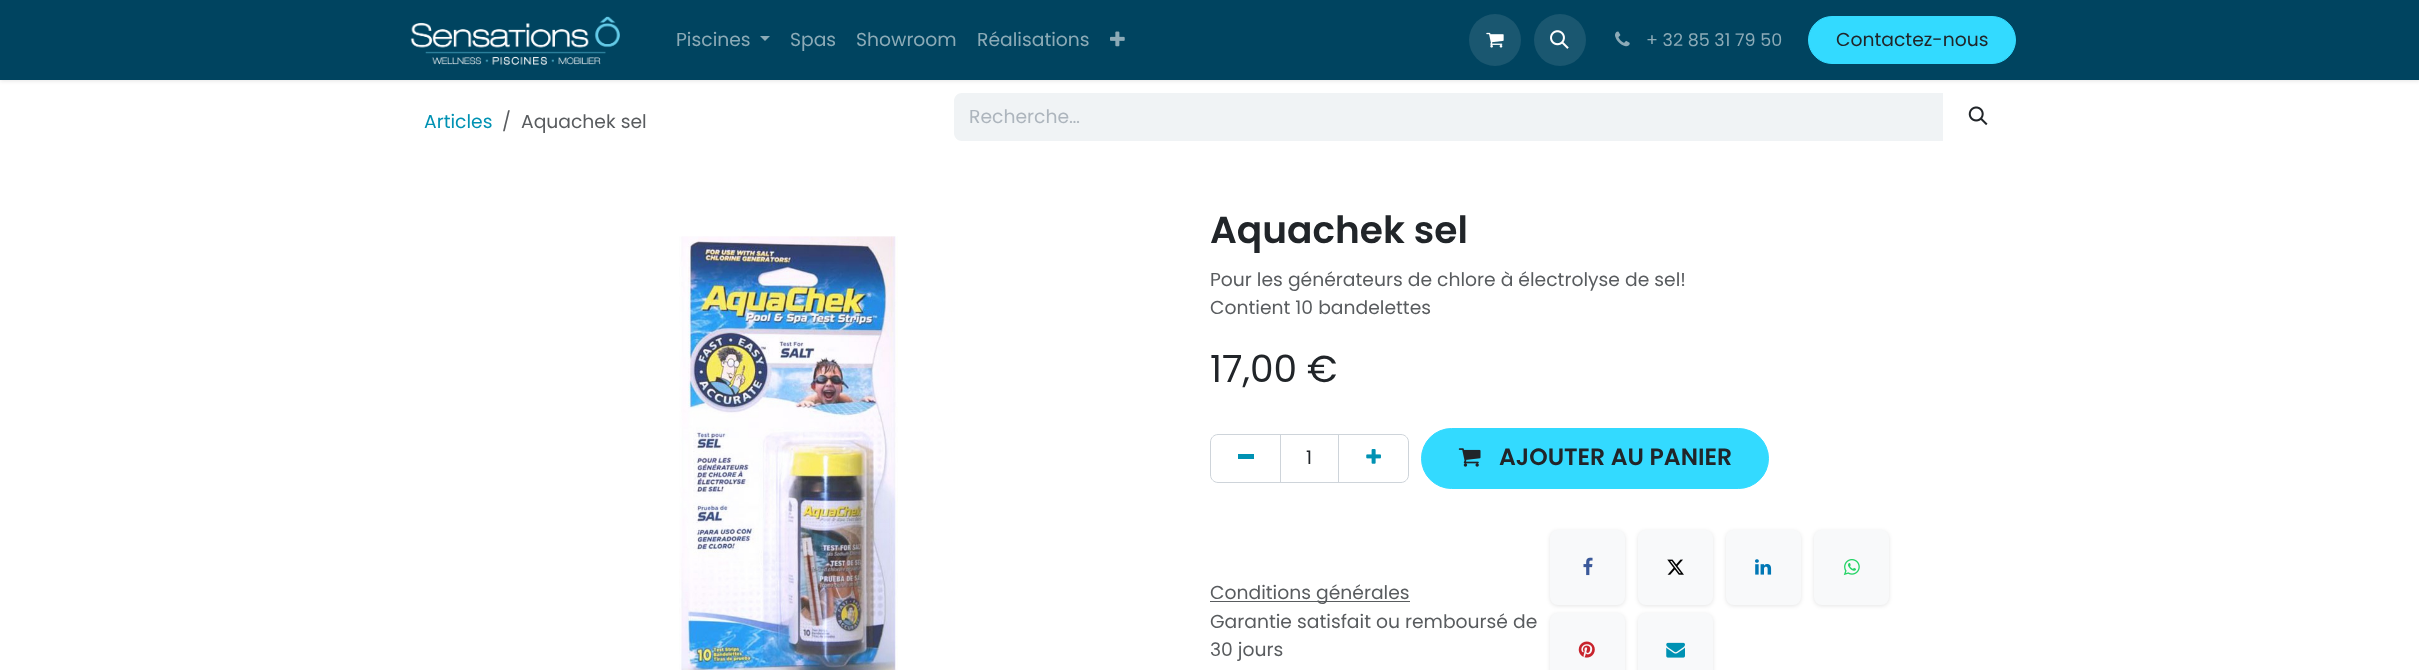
<svg xmlns="http://www.w3.org/2000/svg" width="2419" height="670" viewBox="0 0 2419 670">
  <rect width="100%" height="100%" fill="rgb(255,255,255)"/>
  <rect x="0" y="1" width="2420" height="80" fill="rgba(0,0,0,0.1)" filter="blur(2px)"/>
  <rect x="0" y="0" width="2419" height="80" fill="rgb(0,68,96)"/>
  <image x="410" y="16" width="210" height="49" href="pic1.png"/>
  <text x="676" y="46" font-family="Poppins" font-size="18.75" fill="rgb(140,171,183)">Piscines</text>
  <path d="M760 36H770L765 41Z" fill="rgb(140,171,183)"/>
  <g font-family="Poppins" font-size="18.75" fill="rgb(140,171,183)">
    <text x="790" y="46">Spas</text>
    <text x="856" y="46">Showroom</text>
    <text x="977" y="46">Réalisations</text>
  </g>
  <image x="1110" y="31" width="15" height="16" href="pic2.png"/>
  <circle cx="1495" cy="40" r="26" fill="rgb(26,87,112)"/>
  <image x="1486" y="32" width="18" height="16" href="pic3.png"/>
  <circle cx="1560" cy="40" r="26" fill="rgb(26,87,112)"/>
  <image x="1550" y="30" width="19" height="19" href="pic4.png"/>
  <image x="1615" y="31" width="15" height="16" href="pic5.png"/>
  <text x="1646" y="46" font-family="Poppins" font-size="17.5" fill="rgb(140,171,183)">+ 32 85 31 79 50</text>
  <rect x="1808.5" y="16.5" width="207" height="47" rx="23.5" fill="rgb(51,218,255)" stroke="rgb(51,218,255)"/>
  <text x="1836" y="46" font-family="Poppins" font-size="18.75" fill="rgb(33,37,41)">Contactez-nous</text>
  <text x="424" y="128" font-family="Poppins" font-size="18.75" fill="rgb(0,146,179)">Articles</text>
  <g font-family="Poppins" font-size="18.75" fill="rgb(89,92,95)">
    <text x="502" y="128">/</text>
    <text x="521" y="128">Aquachek sel</text>
  </g>
  <path d="M962 93H1943V141H962C957.5 141 954 137.5 954 133V101C954 96.5 957.5 93 962 93Z" fill="rgb(240,243,245)"/>
  <text x="969" y="123" font-family="Poppins" font-size="18.75" fill="rgb(173,181,189)">Recherche…</text>
  <image x="1968" y="106" width="20" height="20" href="pic6.png"/>
  <image x="679" y="236" width="219" height="434" href="pic7.png"/>
  <text x="1210" y="243" font-family="Poppins" font-size="37.5" font-weight="600" fill="rgb(33,37,41)">Aquachek sel</text>
  <g font-family="Poppins" font-size="18.75" fill="rgb(89,92,95)">
    <text>
      <tspan x="1210" y="286">Pour les générateurs de chlore à électrolyse de sel!</tspan>
      <tspan x="1210" y="314">Contient 10 bandelettes</tspan>
    </text>
  </g>
  <text x="1210" y="382" font-family="Poppins" font-size="37.5" fill="rgb(33,37,41)">17,00 €</text>
  <rect x="1280.5" y="434.5" width="58" height="48" fill="none" stroke="rgb(206,212,218)"/>
  <path d="M1218 434.5H1280.5V482.5H1218C1214 482.5 1210.5 479 1210.5 475V442C1210.5 438 1214 434.5 1218 434.5Z" fill="none" stroke="rgb(206,212,218)"/>
  <rect x="1238" y="454" width="16" height="5" fill="rgb(0,146,179)"/>
  <text x="1306" y="464" font-family="Poppins" font-size="18.75" fill="rgb(33,37,41)">1</text>
  <path d="M1338.5 434.5H1401C1405 434.5 1408.5 438 1408.5 442V475C1408.5 479 1405 482.5 1401 482.5H1338.5Z" fill="none" stroke="rgb(206,212,218)"/>
  <image x="1366" y="449" width="15" height="15" href="pic8.png"/>
  <rect x="1421.5" y="428.5" width="347" height="60" rx="30" fill="rgb(51,218,255)" stroke="rgb(51,218,255)"/>
  <image x="1458" y="448" width="23" height="19" href="pic9.png"/>
  <text x="1499" y="465" font-family="Poppins" font-size="23.5" font-weight="600" fill="rgb(33,37,41)">AJOUTER AU PANIER</text>
  <rect x="1210" y="601" width="200" height="1" fill="rgb(89,92,95)"/>
  <g font-family="Poppins" font-size="18.75" fill="rgb(89,92,95)">
    <text>
      <tspan x="1210" y="599">Conditions générales</tspan>
      <tspan x="1210" y="628">Garantie satisfait ou remboursé de</tspan>
      <tspan x="1210" y="656">30 jours</tspan>
    </text>
  </g>
  <rect x="1550" y="531" width="75" height="75" rx="8" fill="rgba(0,0,0,0.1)" filter="blur(2px)"/>
  <rect x="1550" y="530" width="75" height="75" rx="8" fill="rgb(248,249,250)"/>
  <image x="1583" y="557" width="10" height="19" href="pic10.png"/>
  <rect x="1638" y="531" width="75" height="75" rx="8" fill="rgba(0,0,0,0.1)" filter="blur(2px)"/>
  <rect x="1638" y="530" width="75" height="75" rx="8" fill="rgb(248,249,250)"/>
  <image x="1667" y="559" width="17" height="16" href="pic11.png"/>
  <rect x="1726" y="531" width="75" height="75" rx="8" fill="rgba(0,0,0,0.1)" filter="blur(2px)"/>
  <rect x="1726" y="530" width="75" height="75" rx="8" fill="rgb(248,249,250)"/>
  <image x="1755" y="559" width="17" height="16" href="pic12.png"/>
  <rect x="1814" y="531" width="75" height="75" rx="8" fill="rgba(0,0,0,0.1)" filter="blur(2px)"/>
  <rect x="1814" y="530" width="75" height="75" rx="8" fill="rgb(248,249,250)"/>
  <image x="1843" y="559" width="17" height="17" href="pic13.png"/>
  <rect x="1550" y="614" width="75" height="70" rx="8" fill="rgba(0,0,0,0.1)" filter="blur(2px)"/>
  <rect x="1550" y="613" width="75" height="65" rx="8" fill="rgb(248,249,250)"/>
  <image x="1578" y="641" width="17" height="17" href="pic14.png"/>
  <rect x="1638" y="614" width="75" height="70" rx="8" fill="rgba(0,0,0,0.1)" filter="blur(2px)"/>
  <rect x="1638" y="613" width="75" height="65" rx="8" fill="rgb(248,249,250)"/>
  <image x="1666" y="642" width="19" height="16" href="pic15.png"/>
</svg>
